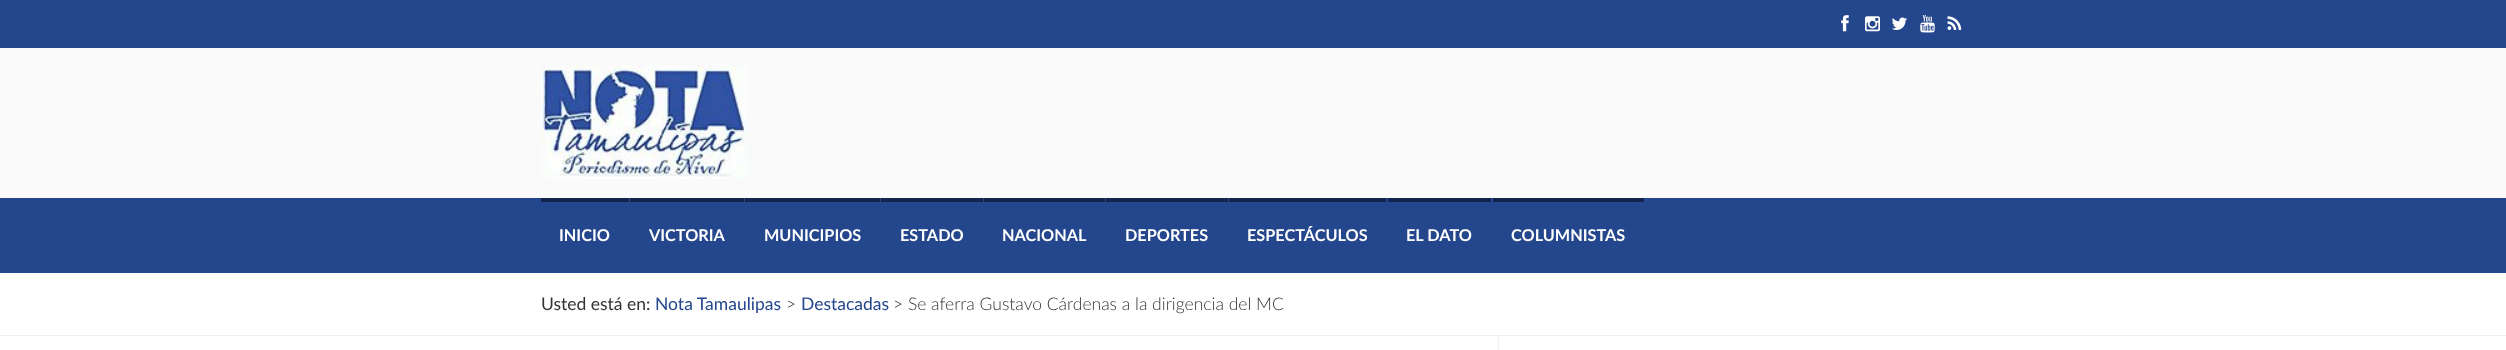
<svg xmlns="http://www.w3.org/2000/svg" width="2506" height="350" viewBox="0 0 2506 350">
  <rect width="100%" height="100%" fill="rgb(255,255,255)"/>
  <rect x="0" y="48" width="2506" height="150" fill="rgb(250,250,250)"/>
  <rect x="0" y="0" width="2506" height="48" fill="rgb(36,70,140)"/>
  <image x="1841" y="15" width="8" height="17" href="pic1.png"/>
  <image x="1865" y="16" width="15" height="16" href="pic2.png"/>
  <image x="1891" y="17" width="16" height="13" href="pic3.png"/>
  <image x="1920" y="15" width="15" height="18" href="pic4.png"/>
  <image x="1947" y="16" width="15" height="14" href="pic5.png"/>
  <image x="541" y="66" width="207" height="113" href="pic6.png"/>
  <rect x="0" y="198" width="2506" height="75" fill="rgb(36,70,140)"/>
  <rect x="541" y="198" width="88" height="4" fill="rgb(18,36,78)"/>
  <text x="559" y="241" font-family="Lato" font-size="16.25" font-weight="bold" fill="rgb(255,255,255)">INICIO</text>
  <rect x="630" y="198" width="114" height="4" fill="rgb(18,36,78)"/>
  <text x="649" y="241" font-family="Lato" font-size="16.25" font-weight="bold" fill="rgb(255,255,255)">VICTORIA</text>
  <rect x="745" y="198" width="135" height="4" fill="rgb(18,36,78)"/>
  <text x="764" y="241" font-family="Lato" font-size="16.25" font-weight="bold" fill="rgb(255,255,255)">MUNICIPIOS</text>
  <rect x="881" y="198" width="102" height="4" fill="rgb(18,36,78)"/>
  <text x="900" y="241" font-family="Lato" font-size="16.25" font-weight="bold" fill="rgb(255,255,255)">ESTADO</text>
  <rect x="984" y="198" width="121" height="4" fill="rgb(18,36,78)"/>
  <text x="1002" y="241" font-family="Lato" font-size="16.25" font-weight="bold" fill="rgb(255,255,255)">NACIONAL</text>
  <rect x="1106" y="198" width="122" height="4" fill="rgb(18,36,78)"/>
  <text x="1125" y="241" font-family="Lato" font-size="16.25" font-weight="bold" fill="rgb(255,255,255)">DEPORTES</text>
  <rect x="1229" y="198" width="157" height="4" fill="rgb(18,36,78)"/>
  <text x="1247" y="241" font-family="Lato" font-size="16.25" font-weight="bold" fill="rgb(255,255,255)">ESPECTÁCULOS</text>
  <rect x="1388" y="198" width="103" height="4" fill="rgb(18,36,78)"/>
  <text x="1406" y="241" font-family="Lato" font-size="16.25" font-weight="bold" fill="rgb(255,255,255)">EL DATO</text>
  <rect x="1493" y="198" width="151" height="4" fill="rgb(18,36,78)"/>
  <text x="1511" y="241" font-family="Lato" font-size="16.25" font-weight="bold" fill="rgb(255,255,255)">COLUMNISTAS</text>
  <rect x="0" y="335" width="2506" height="1" fill="rgb(240,240,240)"/>
  <text x="541" y="310" font-family="Lato" font-size="17.5" fill="rgb(51,51,51)">Usted está en:</text>
  <text x="655" y="310" font-family="Lato" font-size="17.5" fill="rgb(35,70,140)">Nota Tamaulipas</text>
  <text x="786" y="310" font-family="Lato" font-size="17.5" font-weight="300" fill="rgb(51,51,51)">&gt;</text>
  <text x="801" y="310" font-family="Lato" font-size="17.5" fill="rgb(35,70,140)">Destacadas</text>
  <text x="893" y="310" font-family="Lato" font-size="17.5" font-weight="300" fill="rgb(51,51,51)">&gt; Se aferra Gustavo Cárdenas a la dirigencia del MC</text>
  <rect x="1498" y="336" width="1" height="14" fill="rgb(240,240,240)"/>
</svg>
